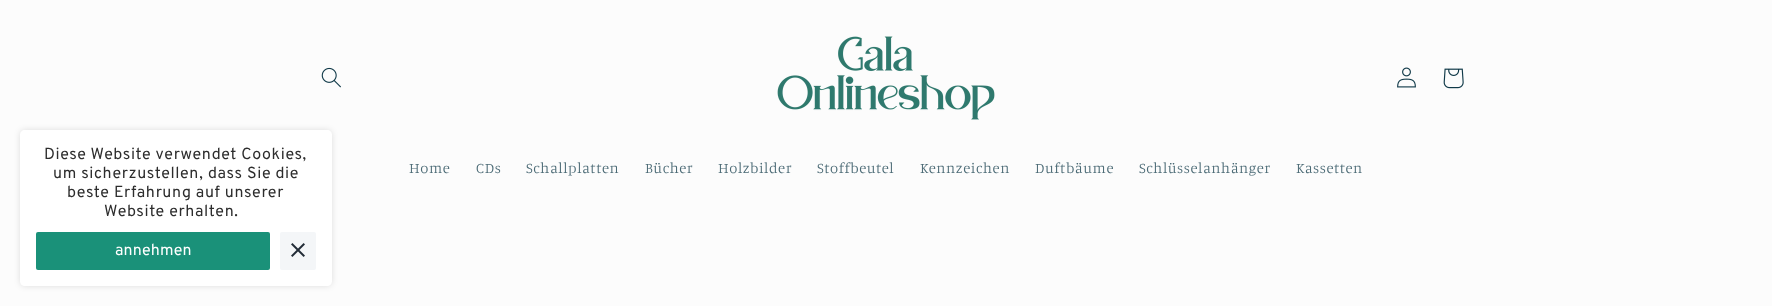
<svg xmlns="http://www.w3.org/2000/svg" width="1772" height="306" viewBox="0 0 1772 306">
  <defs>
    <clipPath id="clip1"><path d="M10 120H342V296H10ZM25 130H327C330 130 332 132 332 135V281C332 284 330 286 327 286H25C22 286 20 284 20 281V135C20 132 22 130 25 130Z" clip-rule="evenodd"/></clipPath>
  </defs>
  <rect width="100%" height="100%" fill="rgb(252,252,252)"/>
  <rect x="20" y="130" width="312" height="156" rx="5" fill="rgb(255,255,255)"/>
  <g clip-path="url(#clip1)">
    <rect x="20" y="130" width="312" height="156" rx="5" fill="rgba(0,0,0,0.12)" filter="blur(3px)"/>
  </g>
  <g font-family="Overpass" font-size="16" letter-spacing="0.6" fill="rgb(45,45,45)">
    <text x="44" y="159">Diese Website verwendet Cookies,</text>
    <text x="53" y="178">um sicherzustellen, dass Sie die</text>
    <text x="67" y="197">beste Erfahrung auf unserer</text>
    <text x="104" y="216">Website erhalten.</text>
  </g>
  <rect x="36" y="232" width="234" height="38" rx="2" fill="rgb(26,145,121)"/>
  <text x="115" y="255" font-family="Overpass" font-size="16" fill="rgb(255,255,255)">annehmen</text>
  <rect x="280" y="232" width="36" height="38" rx="2" fill="rgb(244,246,248)"/>
  <image x="291" y="243" width="14" height="14" href="pic1.png"/>
  <image x="321" y="67" width="20" height="21" href="pic2.png"/>
  <image x="777" y="36" width="218" height="84" href="pic3.png"/>
  <image x="1397" y="67" width="19" height="21" href="pic4.png"/>
  <image x="1443" y="68" width="21" height="21" href="pic5.png"/>
  <g font-family="Manuale" font-size="14.75" font-weight="300" letter-spacing="0.6" fill="rgb(75,106,117)">
    <text x="409" y="173">Home</text>
    <text x="476" y="173">CDs</text>
    <text x="526" y="173">Schallplatten</text>
    <text x="645" y="173">Bücher</text>
    <text x="718" y="173">Holzbilder</text>
    <text x="817" y="173">Stoffbeutel</text>
    <text x="920" y="173">Kennzeichen</text>
    <text x="1035" y="173">Duftbäume</text>
    <text x="1139" y="173">Schlüsselanhänger</text>
    <text x="1296" y="173">Kassetten</text>
  </g>
</svg>
